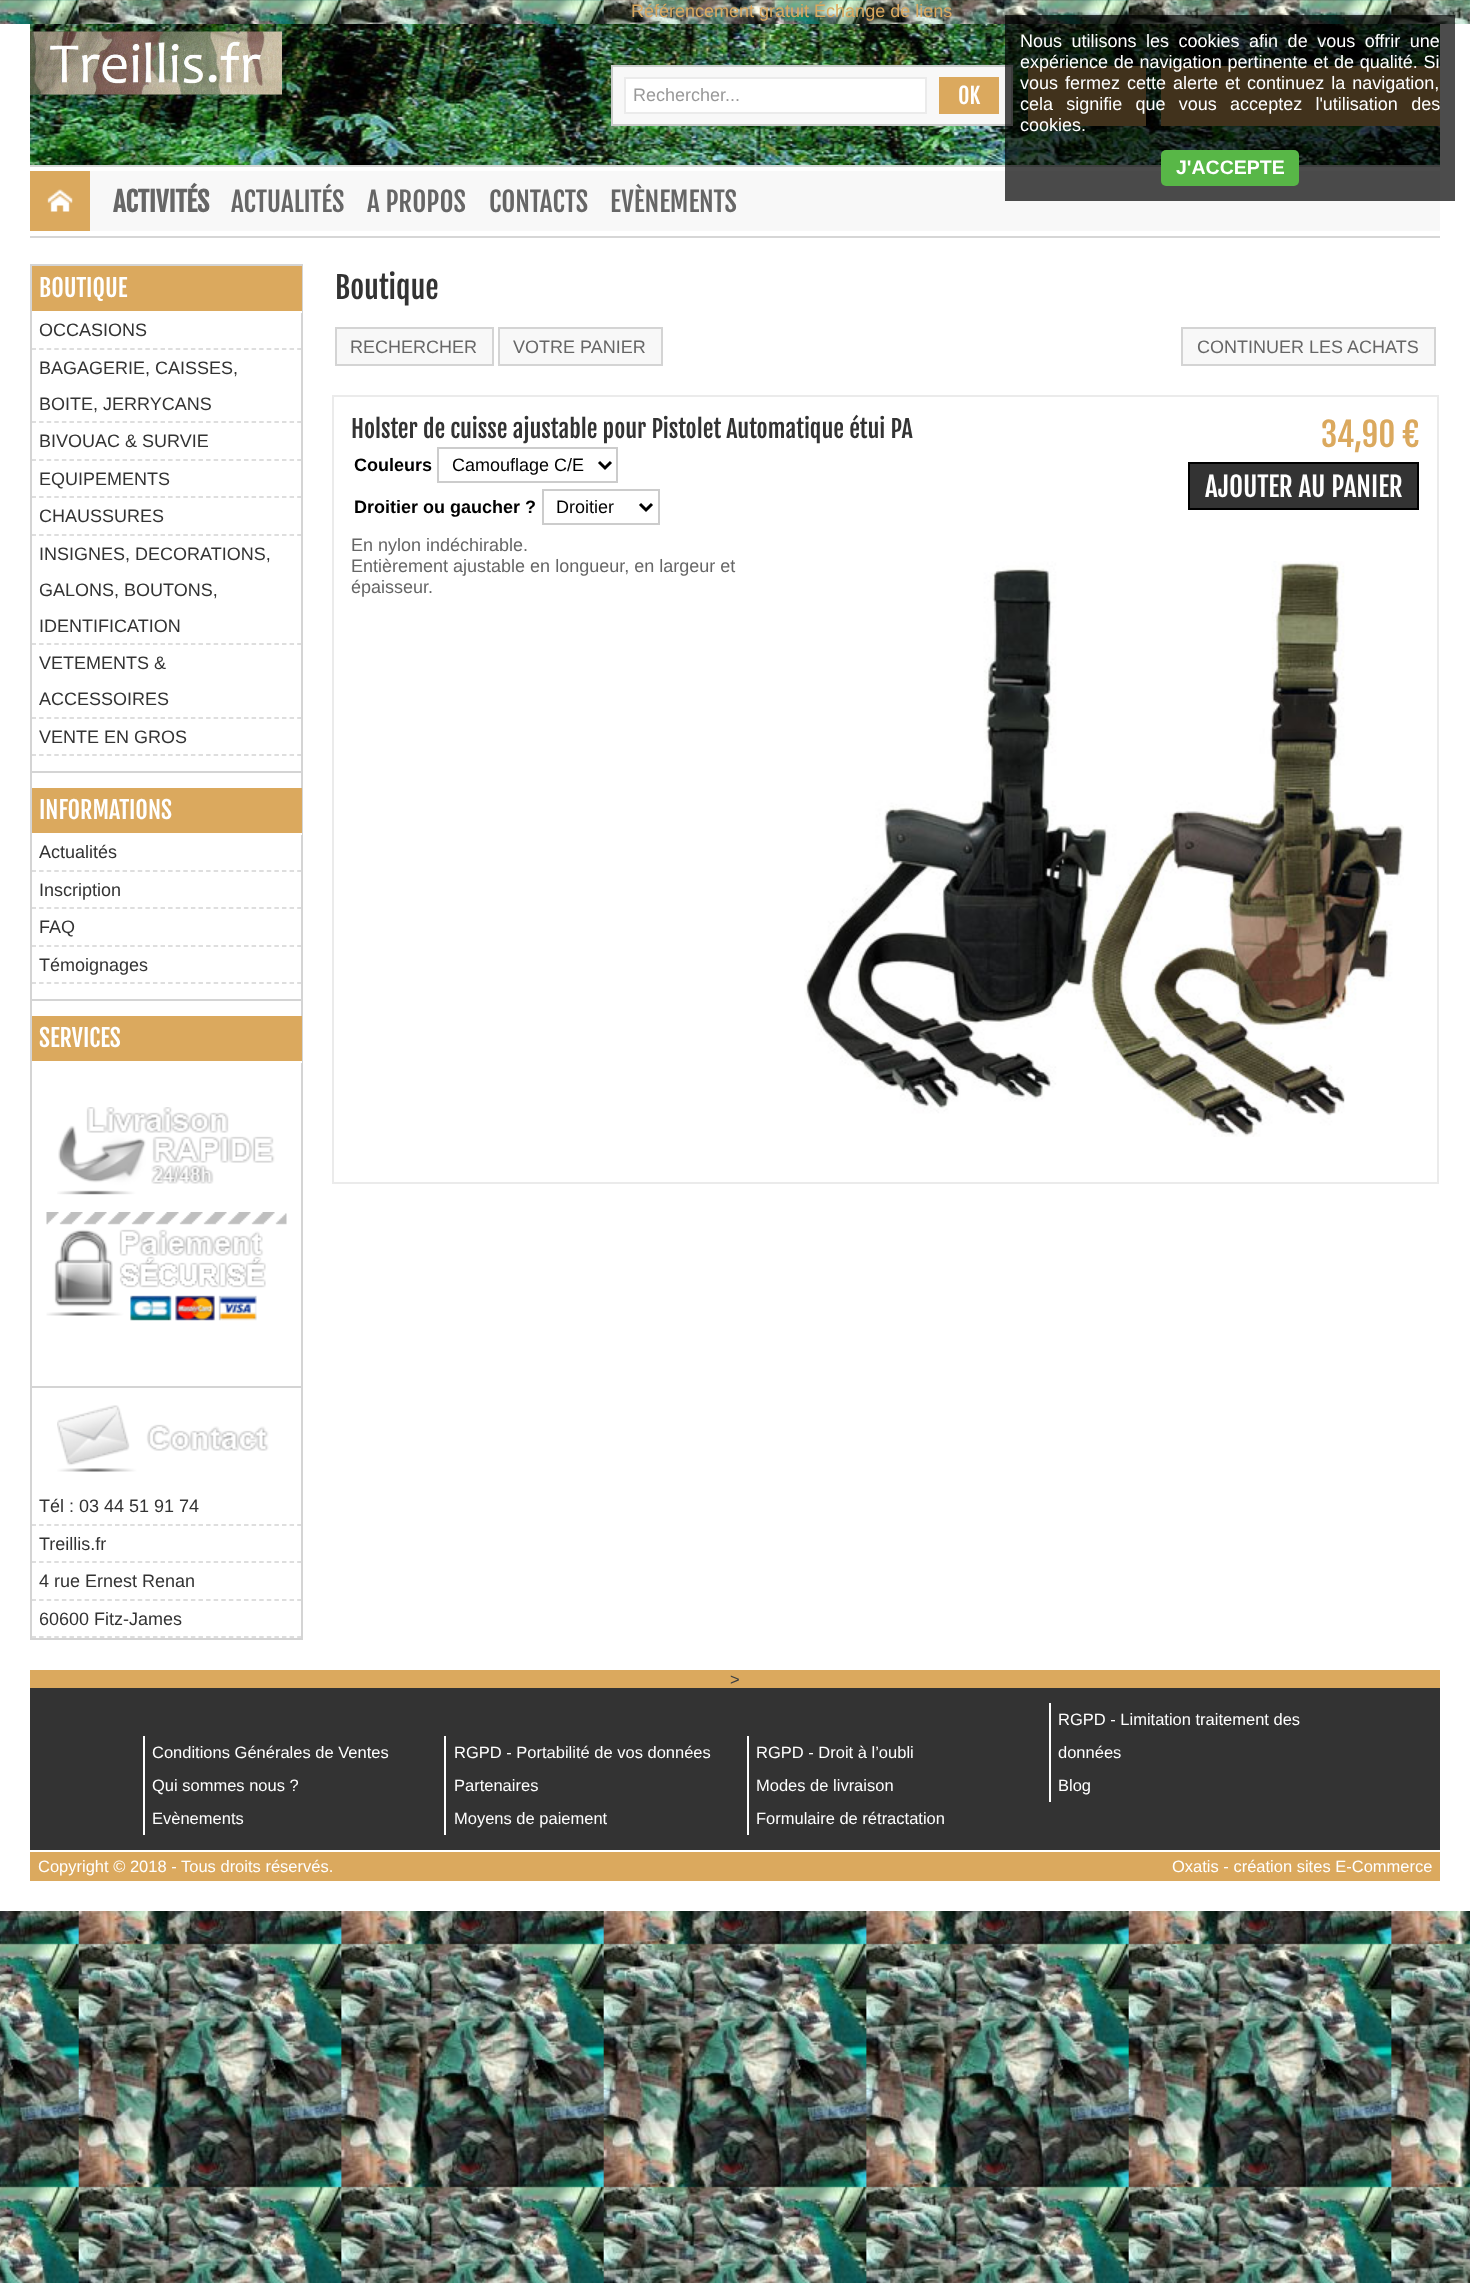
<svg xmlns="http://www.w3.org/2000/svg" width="1470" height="2283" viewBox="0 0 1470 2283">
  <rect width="100%" height="100%" fill="rgb(255,255,255)"/>
  <image x="0" y="0" width="1470" height="2283" href="pic1.png"/>
  <text x="631" y="17" font-family="Liberation Sans" font-size="18" fill="rgb(219,169,94)">Référencement gratuit Échange de liens</text>
  <rect x="0" y="24" width="1470" height="1887" fill="rgb(255,255,255)"/>
  <image x="30" y="24" width="1410" height="141" href="pic2.png"/>
  <rect x="612" y="66" width="400" height="59" fill="rgb(248,248,248)" stroke="rgb(204,204,204)" stroke-width="2"/>
  <rect x="1028" y="66" width="118" height="60" fill="rgb(219,169,94)"/>
  <rect x="1161" y="66" width="279" height="60" fill="rgb(219,169,94)"/>
  <rect x="30" y="165" width="1410" height="2" fill="rgb(214,214,214)"/>
  <rect x="90" y="171" width="1350" height="60" fill="rgb(248,248,248)"/>
  <rect x="1005" y="15" width="450" height="186" fill="rgba(0,0,0,0.7)"/>
  <g font-family="Liberation Sans" font-size="18" fill="rgb(255,255,255)">
    <text>
      <tspan x="1020" y="47" word-spacing="4.5">Nous utilisons les cookies afin de vous offrir une</tspan>
      <tspan x="1020" y="68" word-spacing="0.75">expérience de navigation pertinente et de qualité. Si</tspan>
      <tspan x="1020" y="89" word-spacing="2">vous fermez cette alerte et continuez la navigation,</tspan>
      <tspan x="1020" y="110" word-spacing="8.25">cela signifie que vous acceptez l'utilisation des</tspan>
      <tspan x="1020" y="131">cookies.</tspan>
    </text>
  </g>
  <rect x="1161" y="150" width="138" height="36" rx="5" fill="rgb(88,183,71)"/>
  <text x="1176" y="174" font-family="Liberation Sans" font-size="19.5" font-weight="bold" fill="rgb(255,255,255)">J'ACCEPTE</text>
  <image x="30" y="31" width="252" height="64" href="pic3.png"/>
  <rect x="625" y="78" width="301" height="35" fill="rgb(255,255,255)" stroke="rgb(235,235,235)" stroke-width="2"/>
  <text x="633" y="101" font-family="Liberation Sans" font-size="18" fill="rgb(153,153,153)">Rechercher...</text>
  <rect x="939" y="77" width="60" height="37" fill="rgb(219,169,94)"/>
  <text x="958" y="104" font-family="Fjalla One" font-size="22" fill="rgb(255,255,255)">OK</text>
  <rect x="30" y="171" width="60" height="60" fill="rgb(219,169,94)"/>
  <image x="47" y="189" width="26" height="23" href="pic4.png"/>
  <rect x="30" y="236" width="1410" height="2" fill="rgb(214,214,214)"/>
  <text x="113" y="212" font-family="Fjalla One" font-size="27" font-weight="bold" fill="rgb(102,102,102)">ACTIVITÉS</text>
  <g font-family="Fjalla One" font-size="27" fill="rgb(102,102,102)">
    <text x="231" y="212">ACTUALITÉS</text>
    <text x="367" y="212">A PROPOS</text>
    <text x="489" y="212">CONTACTS</text>
    <text x="610" y="212">EVÈNEMENTS</text>
  </g>
  <rect x="31" y="265" width="271" height="1374" fill="none" stroke="rgb(212,212,212)" stroke-width="2"/>
  <rect x="32" y="266" width="270" height="45" fill="rgb(219,169,94)"/>
  <rect x="301" y="311" width="1" height="2" fill="rgb(255,255,255)"/>
  <text x="39" y="297" font-family="Fjalla One" font-size="24" fill="rgb(255,255,255)">BOUTIQUE</text>
  <path d="M31.5 349H301.5" fill="none" stroke="rgb(212,212,212)" stroke-width="1.5" stroke-dasharray="4.5 3.09"/>
  <text x="39" y="336" font-family="Liberation Sans" font-size="18" fill="rgb(51,51,51)">OCCASIONS</text>
  <path d="M31.5 422H301.5" fill="none" stroke="rgb(212,212,212)" stroke-width="1.5" stroke-dasharray="4.5 3.09"/>
  <g font-family="Liberation Sans" font-size="18" fill="rgb(51,51,51)">
    <text x="39" y="374">BAGAGERIE, CAISSES,</text>
    <text x="39" y="410">BOITE, JERRYCANS</text>
  </g>
  <path d="M31.5 460H301.5" fill="none" stroke="rgb(212,212,212)" stroke-width="1.5" stroke-dasharray="4.5 3.09"/>
  <text x="39" y="447" font-family="Liberation Sans" font-size="18" fill="rgb(51,51,51)">BIVOUAC &amp; SURVIE</text>
  <path d="M31.5 497H301.5" fill="none" stroke="rgb(212,212,212)" stroke-width="1.5" stroke-dasharray="4.5 3.09"/>
  <text x="39" y="485" font-family="Liberation Sans" font-size="18" fill="rgb(51,51,51)">EQUIPEMENTS</text>
  <path d="M31.5 535H301.5" fill="none" stroke="rgb(212,212,212)" stroke-width="1.5" stroke-dasharray="4.5 3.09"/>
  <text x="39" y="522" font-family="Liberation Sans" font-size="18" fill="rgb(51,51,51)">CHAUSSURES</text>
  <path d="M31.5 644H301.5" fill="none" stroke="rgb(212,212,212)" stroke-width="1.5" stroke-dasharray="4.5 3.09"/>
  <g font-family="Liberation Sans" font-size="18" fill="rgb(51,51,51)">
    <text x="39" y="560">INSIGNES, DECORATIONS,</text>
    <text x="39" y="596">GALONS, BOUTONS,</text>
    <text x="39" y="632">IDENTIFICATION</text>
  </g>
  <path d="M31.5 718H301.5" fill="none" stroke="rgb(212,212,212)" stroke-width="1.5" stroke-dasharray="4.5 3.09"/>
  <g font-family="Liberation Sans" font-size="18" fill="rgb(51,51,51)">
    <text x="39" y="669">VETEMENTS &amp;</text>
    <text x="39" y="705">ACCESSOIRES</text>
  </g>
  <path d="M31.5 755H301.5" fill="none" stroke="rgb(212,212,212)" stroke-width="1.5" stroke-dasharray="4.5 3.09"/>
  <text x="39" y="743" font-family="Liberation Sans" font-size="18" fill="rgb(51,51,51)">VENTE EN GROS</text>
  <rect x="32" y="771" width="270" height="2" fill="rgb(212,212,212)"/>
  <rect x="32" y="788" width="270" height="45" fill="rgb(219,169,94)"/>
  <rect x="301" y="833" width="1" height="2" fill="rgb(255,255,255)"/>
  <text x="39" y="819" font-family="Fjalla One" font-size="24" fill="rgb(255,255,255)">INFORMATIONS</text>
  <path d="M31.5 871H301.5" fill="none" stroke="rgb(212,212,212)" stroke-width="1.5" stroke-dasharray="4.5 3.09"/>
  <text x="39" y="858" font-family="Liberation Sans" font-size="18" fill="rgb(51,51,51)">Actualités</text>
  <path d="M31.5 908H301.5" fill="none" stroke="rgb(212,212,212)" stroke-width="1.5" stroke-dasharray="4.5 3.09"/>
  <text x="39" y="896" font-family="Liberation Sans" font-size="18" fill="rgb(51,51,51)">Inscription</text>
  <path d="M31.5 946H301.5" fill="none" stroke="rgb(212,212,212)" stroke-width="1.5" stroke-dasharray="4.5 3.09"/>
  <text x="39" y="933" font-family="Liberation Sans" font-size="18" fill="rgb(51,51,51)">FAQ</text>
  <path d="M31.5 983H301.5" fill="none" stroke="rgb(212,212,212)" stroke-width="1.5" stroke-dasharray="4.5 3.09"/>
  <text x="39" y="971" font-family="Liberation Sans" font-size="18" fill="rgb(51,51,51)">Témoignages</text>
  <rect x="32" y="999" width="270" height="2" fill="rgb(212,212,212)"/>
  <rect x="32" y="1016" width="270" height="45" fill="rgb(219,169,94)"/>
  <rect x="301" y="1061" width="1" height="2" fill="rgb(255,255,255)"/>
  <text x="39" y="1047" font-family="Fjalla One" font-size="24" fill="rgb(255,255,255)">SERVICES</text>
  <image x="57" y="1107" width="218" height="88" href="pic5.png"/>
  <image x="46" y="1212" width="241" height="109" href="pic6.png"/>
  <rect x="32" y="1386" width="270" height="2" fill="rgb(212,212,212)"/>
  <image x="57" y="1405" width="212" height="67" href="pic7.png"/>
  <path d="M31.5 1525H301.5" fill="none" stroke="rgb(212,212,212)" stroke-width="1.5" stroke-dasharray="4.5 3.09"/>
  <text x="39" y="1512" font-family="Liberation Sans" font-size="18" fill="rgb(51,51,51)">Tél : 03 44 51 91 74</text>
  <path d="M31.5 1562H301.5" fill="none" stroke="rgb(212,212,212)" stroke-width="1.5" stroke-dasharray="4.5 3.09"/>
  <text x="39" y="1550" font-family="Liberation Sans" font-size="18" fill="rgb(51,51,51)">Treillis.fr</text>
  <path d="M31.5 1600H301.5" fill="none" stroke="rgb(212,212,212)" stroke-width="1.5" stroke-dasharray="4.5 3.09"/>
  <text x="39" y="1587" font-family="Liberation Sans" font-size="18" fill="rgb(51,51,51)">4 rue Ernest Renan</text>
  <path d="M31.5 1637H301.5" fill="none" stroke="rgb(212,212,212)" stroke-width="1.5" stroke-dasharray="4.5 3.09"/>
  <text x="39" y="1625" font-family="Liberation Sans" font-size="18" fill="rgb(51,51,51)">60600 Fitz-James</text>
  <text x="335" y="299" font-family="Fjalla One" font-size="30" fill="rgb(51,51,51)">Boutique</text>
  <rect x="336" y="328" width="157" height="37" fill="rgb(248,248,248)" stroke="rgb(212,212,212)" stroke-width="2"/>
  <text x="350" y="353" font-family="Liberation Sans" font-size="18" fill="rgb(102,102,102)">RECHERCHER</text>
  <rect x="499" y="328" width="163" height="37" fill="rgb(248,248,248)" stroke="rgb(212,212,212)" stroke-width="2"/>
  <text x="513" y="353" font-family="Liberation Sans" font-size="18" fill="rgb(102,102,102)">VOTRE PANIER</text>
  <rect x="1182" y="328" width="253" height="37" fill="rgb(248,248,248)" stroke="rgb(212,212,212)" stroke-width="2"/>
  <text x="1197" y="353" font-family="Liberation Sans" font-size="18" fill="rgb(102,102,102)">CONTINUER LES ACHATS</text>
  <rect x="333" y="396" width="1105" height="787" fill="none" stroke="rgb(235,235,235)" stroke-width="2"/>
  <text x="351" y="438" font-family="Fjalla One" font-size="24" fill="rgb(51,51,51)">Holster de cuisse ajustable pour Pistolet Automatique étui PA</text>
  <text x="354" y="471" font-family="Liberation Sans" font-size="18" font-weight="bold" fill="rgb(0,0,0)">Couleurs</text>
  <rect x="438" y="448" width="179" height="34" fill="none" stroke="rgb(204,204,204)" stroke-width="2"/>
  <path d="M599 462L605 468L611 462" fill="none" stroke="rgb(0,0,0)" stroke-width="3"/>
  <text x="452" y="471" font-family="Liberation Sans" font-size="18" fill="rgb(0,0,0)">Camouflage C/E</text>
  <text x="354" y="513" font-family="Liberation Sans" font-size="18" font-weight="bold" fill="rgb(0,0,0)">Droitier ou gaucher ?</text>
  <rect x="543" y="490" width="116" height="34" fill="none" stroke="rgb(204,204,204)" stroke-width="2"/>
  <path d="M640 504L646 510L652 504" fill="none" stroke="rgb(0,0,0)" stroke-width="3"/>
  <text x="556" y="513" font-family="Liberation Sans" font-size="18" fill="rgb(0,0,0)">Droitier</text>
  <text x="1321" y="447" font-family="Fjalla One" font-size="33" fill="rgb(219,169,94)">34,90 €</text>
  <rect x="1189" y="463" width="229" height="46" fill="rgb(51,51,51)" stroke="rgb(0,0,0)" stroke-width="2"/>
  <text x="1205" y="497" font-family="Fjalla One" font-size="27" fill="rgb(255,255,255)">AJOUTER AU PANIER</text>
  <g font-family="Liberation Sans" font-size="18" fill="rgb(102,102,102)">
    <text>
      <tspan x="351" y="551">En nylon indéchirable.</tspan>
      <tspan x="351" y="572">Entièrement ajustable en longueur, en largeur et</tspan>
    </text>
  </g>
  <image x="804" y="561" width="600" height="576" href="pic8.png"/>
  <text x="351" y="593" font-family="Liberation Sans" font-size="18" fill="rgb(102,102,102)">épaisseur.</text>
  <rect x="30" y="1670" width="1410" height="211" fill="rgb(219,169,94)"/>
  <text x="730" y="1685" font-family="Liberation Sans" font-size="16.5" fill="rgb(60,64,67)">&gt;</text>
  <rect x="30" y="1688" width="1410" height="162" fill="rgb(51,51,51)"/>
  <rect x="30" y="1850" width="1410" height="2" fill="rgb(255,255,255)"/>
  <rect x="143" y="1736" width="2" height="99" fill="rgb(255,255,255)"/>
  <text x="152" y="1758" font-family="Liberation Sans" font-size="16.5" fill="rgb(255,255,255)">Conditions Générales de Ventes</text>
  <rect x="444" y="1736" width="2" height="99" fill="rgb(255,255,255)"/>
  <text x="454" y="1758" font-family="Liberation Sans" font-size="16.5" fill="rgb(255,255,255)">RGPD - Portabilité de vos données</text>
  <rect x="747" y="1736" width="2" height="99" fill="rgb(255,255,255)"/>
  <text x="756" y="1758" font-family="Liberation Sans" font-size="16.5" fill="rgb(255,255,255)">RGPD - Droit à l’oubli</text>
  <rect x="1049" y="1703" width="2" height="99" fill="rgb(255,255,255)"/>
  <g font-family="Liberation Sans" font-size="16.5" fill="rgb(255,255,255)">
    <text x="1058" y="1725">RGPD - Limitation traitement des</text>
    <text x="1058" y="1758">données</text>
    <text x="152" y="1791">Qui sommes nous ?</text>
    <text x="454" y="1791">Partenaires</text>
    <text x="756" y="1791">Modes de livraison</text>
    <text x="1058" y="1791">Blog</text>
    <text x="152" y="1824">Evènements</text>
    <text x="454" y="1824">Moyens de paiement</text>
    <text x="756" y="1824">Formulaire de rétractation</text>
    <text x="38" y="1872">Copyright © 2018 - Tous droits réservés.</text>
    <text x="1172" y="1872">Oxatis - création sites E-Commerce</text>
  </g>
</svg>
